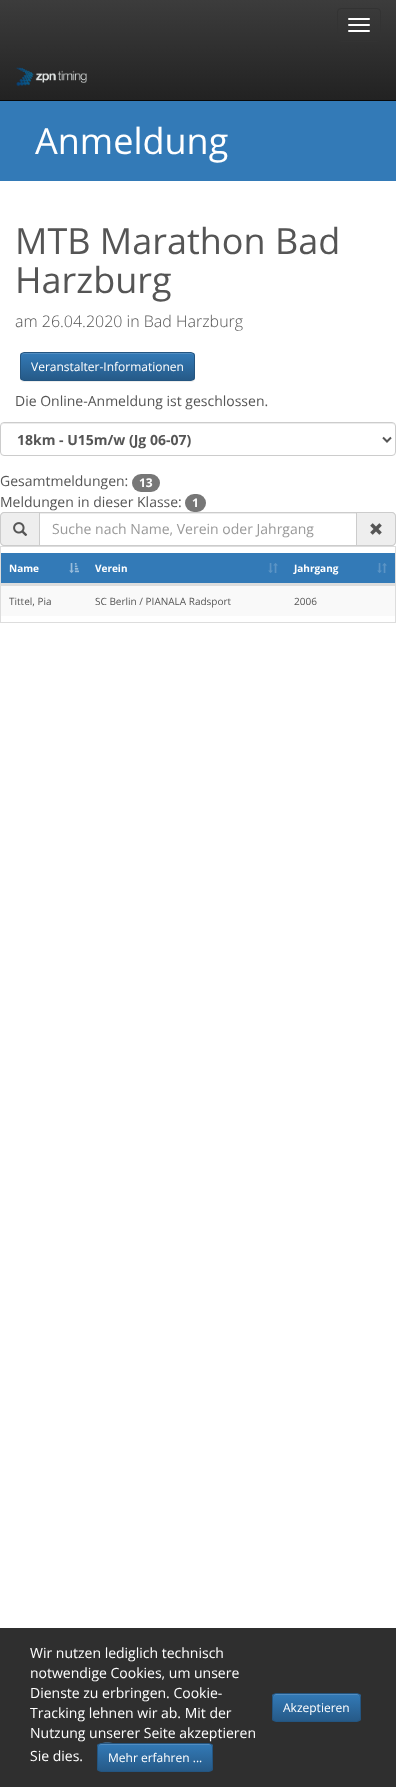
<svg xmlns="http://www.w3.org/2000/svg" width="396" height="1787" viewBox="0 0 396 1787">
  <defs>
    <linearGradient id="g1" gradientUnits="userSpaceOnUse" x1="198" y1="0" x2="198" y2="100"><stop offset="0" stop-color="rgb(60,60,60)"/><stop offset="1" stop-color="rgb(34,34,34)"/></linearGradient>
    <clipPath id="clip1"><rect x="20" y="352" width="175" height="29" rx="4"/></clipPath>
    <linearGradient id="g2" gradientUnits="userSpaceOnUse" x1="108" y1="353" x2="108" y2="380"><stop offset="0" stop-color="rgb(51,122,183)"/><stop offset="1" stop-color="rgb(38,90,136)"/></linearGradient>
    <clipPath id="clip2"><rect x="97" y="1743" width="116" height="29" rx="4"/></clipPath>
    <linearGradient id="g3" gradientUnits="userSpaceOnUse" x1="155" y1="1744" x2="155" y2="1771"><stop offset="0" stop-color="rgb(51,122,183)"/><stop offset="1" stop-color="rgb(38,90,136)"/></linearGradient>
    <clipPath id="clip3"><rect x="272" y="1693" width="89" height="29" rx="4"/></clipPath>
    <linearGradient id="g4" gradientUnits="userSpaceOnUse" x1="317" y1="1694" x2="317" y2="1721"><stop offset="0" stop-color="rgb(51,122,183)"/><stop offset="1" stop-color="rgb(38,90,136)"/></linearGradient>
  </defs>
  <rect width="100%" height="100%" fill="rgb(255,255,255)"/>
  <rect x="0" y="0" width="396" height="100" fill="url(#g1)"/>
  <rect x="0" y="100" width="396" height="1" fill="rgb(8,8,8)"/>
  <rect x="337.5" y="8.5" width="43" height="33" rx="3.5" fill="none" stroke="rgb(51,51,51)"/>
  <rect x="348" y="18" width="22" height="2" rx="1" fill="rgb(255,255,255)"/>
  <rect x="348" y="24" width="22" height="2" rx="1" fill="rgb(255,255,255)"/>
  <rect x="348" y="30" width="22" height="2" rx="1" fill="rgb(255,255,255)"/>
  <image x="16" y="67" width="71" height="20" href="pic1.png"/>
  <rect x="0" y="101" width="396" height="80" fill="rgb(51,122,183)"/>
  <text x="35" y="154" font-family="Open Sans" font-size="36" fill="rgb(255,255,255)">Anmeldung</text>
  <g font-family="Open Sans" font-size="36" fill="rgb(85,85,85)">
    <text>
      <tspan x="15" y="254">MTB Marathon Bad</tspan>
      <tspan x="15" y="293">Harzburg</tspan>
    </text>
  </g>
  <text x="15" y="327" font-family="Open Sans" font-size="16" font-weight="300" fill="rgb(85,85,85)">am 26.04.2020 in Bad Harzburg</text>
  <rect x="20" y="353" width="175" height="29" rx="4" fill="rgba(0,0,0,0.07)" filter="blur(0.5px)"/>
  <g clip-path="url(#clip1)">
    <rect x="20" y="353" width="175" height="27" fill="url(#g2)"/>
  </g>
  <path d="M24 354H191C193 354 194 355 194 357V356C194 354 193 353 191 353H24C22 353 21 354 21 356V357C21 355 22 354 24 354Z" fill="rgb(82,141,193)"/>
  <rect x="20.5" y="352.5" width="174" height="28" rx="3.5" fill="none" stroke="rgb(36,85,128)"/>
  <text x="31" y="371" font-family="Open Sans" font-size="12" fill="rgb(255,255,255)">Veranstalter-Informationen</text>
  <text x="15" y="406" font-family="Open Sans" font-size="14" fill="rgb(85,85,85)">Die Online-Anmeldung ist geschlossen.</text>
  <path d="M4 424H392C394 424 395 425 395 427C395 425 394 423 392 423H4L2 424L1 427C1 425 2 424 4 424Z" fill="rgb(236,236,236)"/>
  <rect x="0.5" y="422.5" width="395" height="33" rx="3.5" fill="none" stroke="rgb(204,204,204)"/>
  <path d="M383 437.5L387 441.5L391 437.5" fill="none" stroke="rgb(85,85,85)" stroke-width="2"/>
  <text x="17" y="445" font-family="Open Sans" font-size="14" font-weight="bold" fill="rgb(85,85,85)">18km - U15m/w (Jg 06-07)</text>
  <text x="0" y="486" font-family="Open Sans" font-size="14" fill="rgb(85,85,85)">Gesamtmeldungen:</text>
  <rect x="132" y="474" width="28" height="18" rx="9" fill="rgb(119,119,119)"/>
  <text x="139" y="487" font-family="Open Sans" font-size="12" font-weight="bold" fill="rgb(255,255,255)">13</text>
  <text x="0" y="507" font-family="Open Sans" font-size="14" fill="rgb(85,85,85)">Meldungen in dieser Klasse:</text>
  <rect x="185" y="494" width="21" height="18" rx="9" fill="rgb(119,119,119)"/>
  <text x="192" y="507" font-family="Open Sans" font-size="12" font-weight="bold" fill="rgb(255,255,255)">1</text>
  <path d="M4 512H39V546H4C2 546 0 544 0 542V516C0 514 2 512 4 512Z" fill="rgb(238,238,238)"/>
  <path d="M4 512H39V546H4C2 546 0 544 0 542V516C0 514 2 512 4 512ZM4 513H39V545H4C2.5 545 1 543.5 1 542V516C1 514.5 2.5 513 4 513Z" fill="rgb(204,204,204)" fill-rule="evenodd"/>
  <image x="13" y="522" width="15" height="14" href="pic2.png"/>
  <rect x="40" y="513" width="316" height="1" fill="rgb(236,236,236)"/>
  <rect x="39.5" y="512.5" width="317" height="33" fill="none" stroke="rgb(204,204,204)"/>
  <text x="52" y="534" font-family="Open Sans" font-size="14" fill="rgb(153,153,153)">Suche nach Name, Verein oder Jahrgang</text>
  <path d="M357 512H392C394 512 396 514 396 516V542C396 544 394 546 392 546H357Z" fill="rgb(238,238,238)"/>
  <path d="M357 512H392C394 512 396 514 396 516V542C396 544 394 546 392 546H357ZM357 513H392C393.5 513 395 514.5 395 516V542C395 543.5 393.5 545 392 545H357Z" fill="rgb(204,204,204)" fill-rule="evenodd"/>
  <image x="370" y="523" width="12" height="12" href="pic3.png"/>
  <rect x="0.5" y="546.5" width="395" height="76" fill="none" stroke="rgb(221,221,221)"/>
  <rect x="1" y="553" width="394" height="30" fill="rgb(51,122,183)"/>
  <rect x="1" y="583" width="394" height="2" fill="rgb(221,221,221)"/>
  <text x="9" y="572" font-family="Open Sans" font-size="10" font-weight="bold" fill="rgb(255,255,255)">Name</text>
  <image x="69" y="563" width="10" height="10" href="pic4.png"/>
  <text x="95" y="572" font-family="Open Sans" font-size="10" font-weight="bold" fill="rgb(255,255,255)">Verein</text>
  <image x="268" y="563" width="10" height="10" href="pic5.png"/>
  <text x="294" y="572" font-family="Open Sans" font-size="10" font-weight="bold" fill="rgb(255,255,255)">Jahrgang</text>
  <image x="377" y="563" width="10" height="10" href="pic5.png"/>
  <rect x="1" y="586" width="394" height="30" fill="rgb(249,249,249)"/>
  <rect x="1" y="585" width="394" height="1" fill="rgb(221,221,221)"/>
  <g font-family="Open Sans" font-size="10" fill="rgb(85,85,85)">
    <text x="9" y="605">Tittel, Pia</text>
    <text x="95" y="605">SC Berlin / PIANALA Radsport</text>
    <text x="294" y="605">2006</text>
  </g>
  <rect x="0" y="1628" width="396" height="159" fill="rgb(47,47,47)"/>
  <g font-family="Open Sans" font-size="14" fill="rgb(255,255,255)">
    <text>
      <tspan x="30" y="1658">Wir nutzen lediglich technisch</tspan>
      <tspan x="30" y="1678">notwendige Cookies, um unsere</tspan>
      <tspan x="30" y="1698">Dienste zu erbringen. Cookie-</tspan>
      <tspan x="30" y="1718">Tracking lehnen wir ab. Mit der</tspan>
      <tspan x="30" y="1738">Nutzung unserer Seite akzeptieren</tspan>
      <tspan x="30" y="1761">Sie dies.</tspan>
    </text>
  </g>
  <g clip-path="url(#clip2)">
    <rect x="97" y="1744" width="116" height="27" fill="url(#g3)"/>
  </g>
  <path d="M101 1745H209C211 1745 212 1746 212 1748C212 1746 211 1744 209 1744H119C117 1744 98 1739 98 1748C98 1746 99 1745 101 1745Z" fill="rgb(82,141,193)"/>
  <rect x="97.5" y="1743.5" width="115" height="28" rx="3.5" fill="none" stroke="rgb(36,85,128)"/>
  <text x="108" y="1762" font-family="Open Sans" font-size="12" fill="rgb(255,255,255)">Mehr erfahren ...</text>
  <g clip-path="url(#clip3)">
    <rect x="272" y="1694" width="89" height="27" fill="url(#g4)"/>
  </g>
  <path d="M276 1695H357C359 1695 360 1696 360 1698C360 1690 347 1694 344 1694H290C286 1694 273 1690 273 1698C273 1696 274 1695 276 1695Z" fill="rgb(82,141,193)"/>
  <rect x="272.5" y="1693.5" width="88" height="28" rx="3.5" fill="none" stroke="rgb(36,85,128)"/>
  <text x="283" y="1712" font-family="Open Sans" font-size="12" fill="rgb(255,255,255)">Akzeptieren</text>
</svg>
